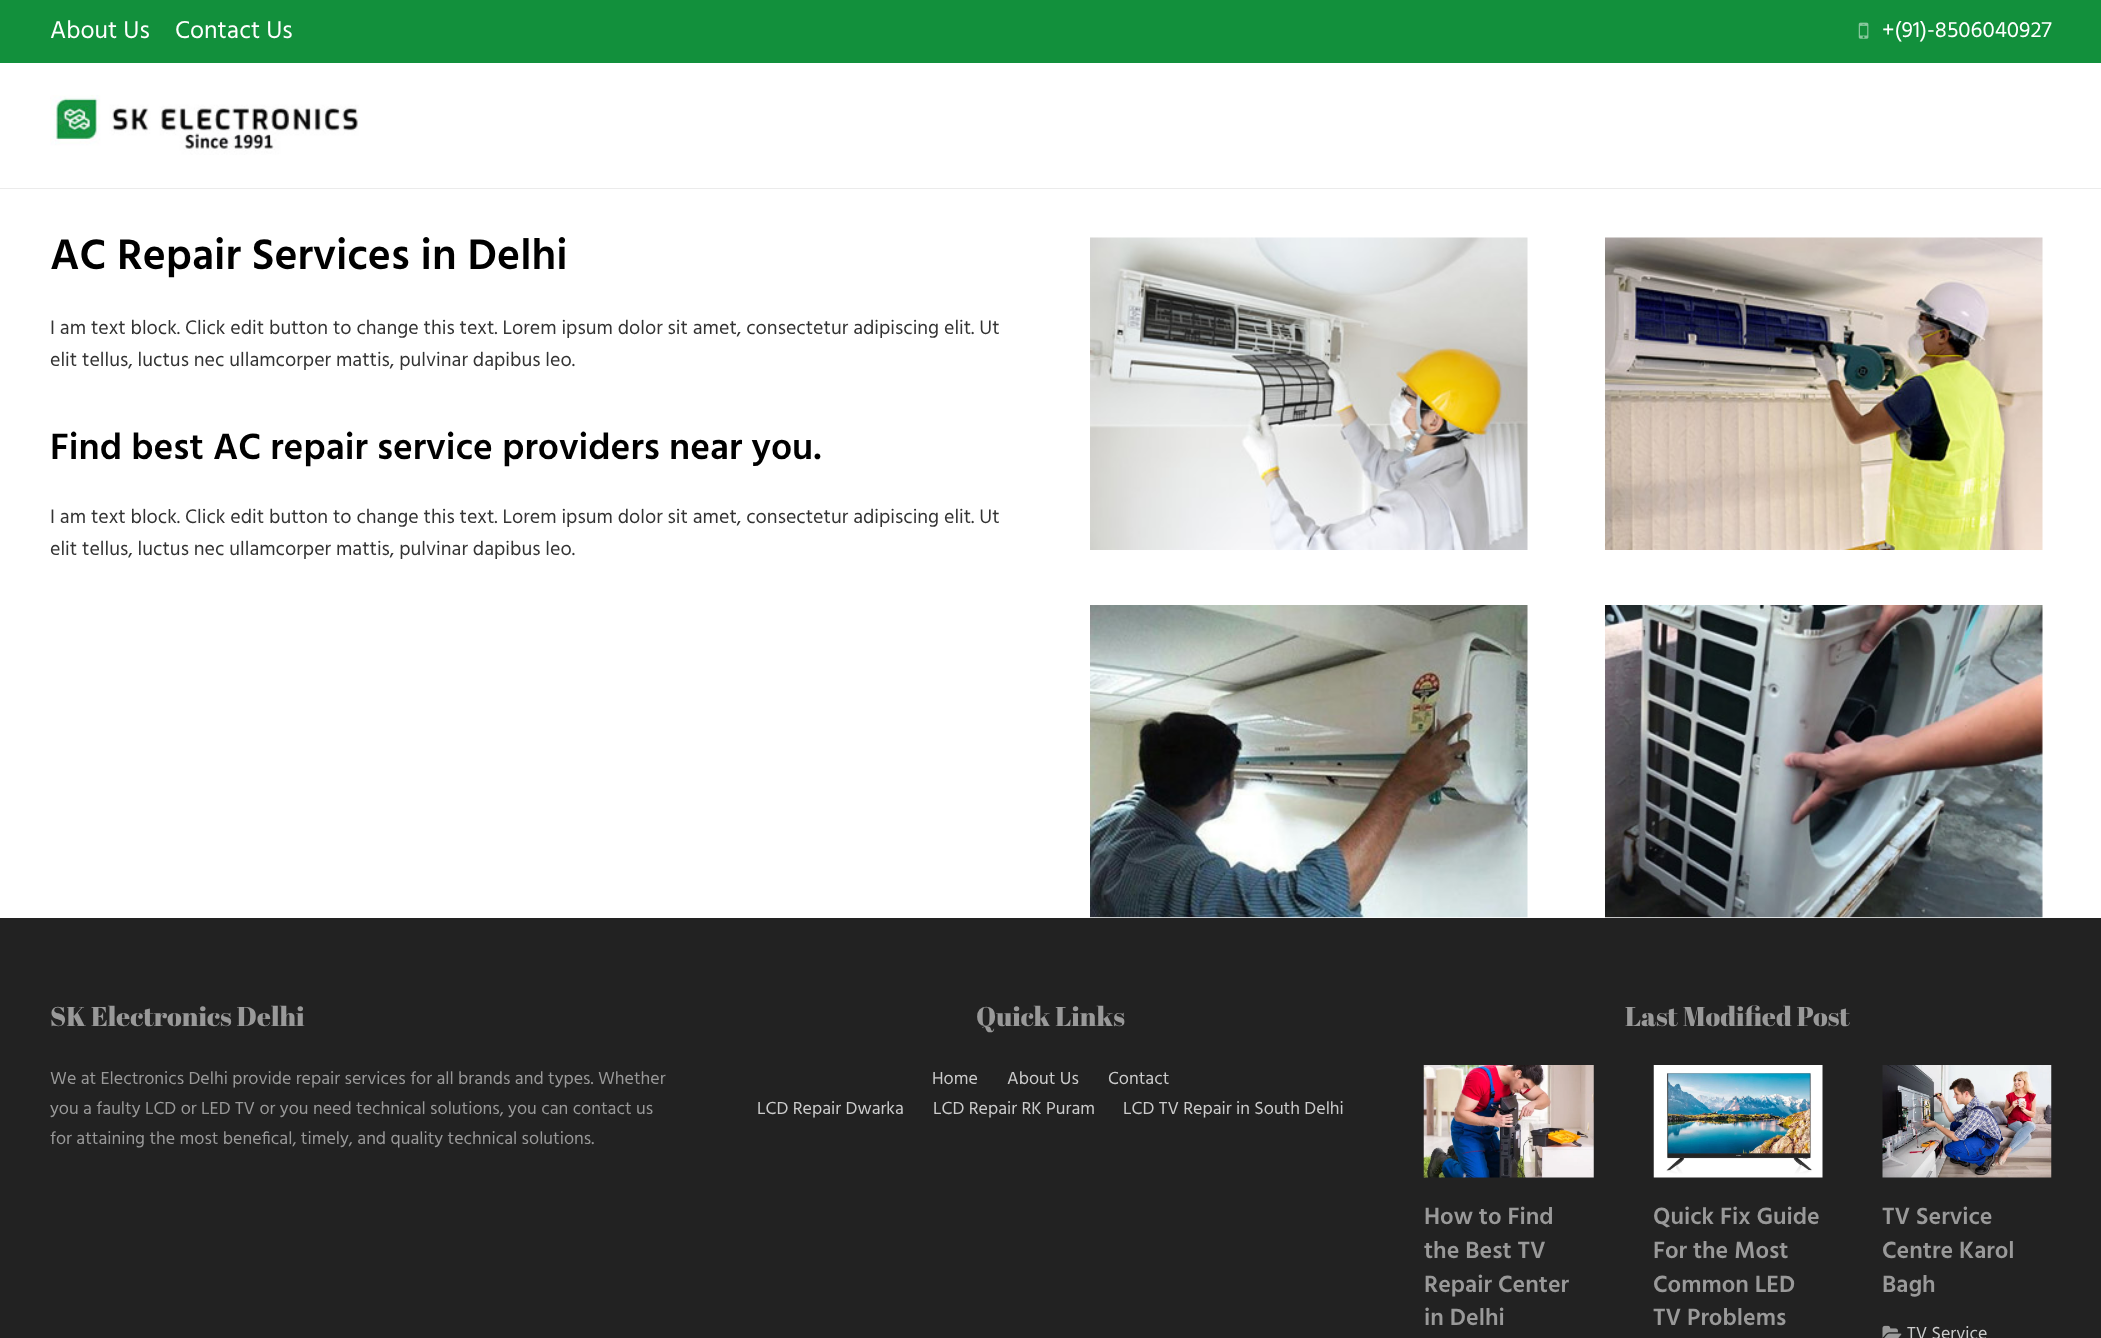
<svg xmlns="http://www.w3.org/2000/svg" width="2101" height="1338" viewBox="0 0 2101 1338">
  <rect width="100%" height="100%" fill="rgb(255,255,255)"/>
  <rect x="0" y="0" width="2101" height="63" fill="rgb(18,144,60)"/>
  <g font-family="Hind" font-size="25" fill="rgb(255,255,255)">
    <text x="50" y="38">About Us</text>
    <text x="175" y="38">Contact Us</text>
  </g>
  <image x="1858" y="22" width="11" height="17" href="pic1.png"/>
  <text x="1882" y="37" font-family="Hind" font-size="22.5" fill="rgb(255,255,255)">+(91)-8506040927</text>
  <rect x="0" y="188" width="2101" height="1" fill="rgb(235,235,235)"/>
  <image x="50" y="95" width="309" height="60" href="pic2.png"/>
  <text x="50" y="269" font-family="Hind" font-size="43.75" font-weight="600" fill="rgb(0,0,0)">AC Repair Services in Delhi</text>
  <g font-family="Hind" font-size="20" fill="rgb(51,51,51)">
    <text>
      <tspan x="50" y="334">I am text block. Click edit button to change this text. Lorem ipsum dolor sit amet, consectetur adipiscing elit. Ut</tspan>
      <tspan x="50" y="366">elit tellus, luctus nec ullamcorper mattis, pulvinar dapibus leo.</tspan>
    </text>
  </g>
  <text x="50" y="459" font-family="Hind" font-size="37.5" font-weight="600" fill="rgb(0,0,0)">Find best AC repair service providers near you.</text>
  <g font-family="Hind" font-size="20" fill="rgb(51,51,51)">
    <text>
      <tspan x="50" y="523">I am text block. Click edit button to change this text. Lorem ipsum dolor sit amet, consectetur adipiscing elit. Ut</tspan>
      <tspan x="50" y="555">elit tellus, luctus nec ullamcorper mattis, pulvinar dapibus leo.</tspan>
    </text>
  </g>
  <image x="1090" y="237" width="438" height="313" href="pic3.png"/>
  <image x="1090" y="605" width="438" height="313" href="pic4.png"/>
  <image x="1605" y="237" width="438" height="313" href="pic5.png"/>
  <image x="1605" y="605" width="438" height="313" href="pic6.png"/>
  <rect x="0" y="918" width="2101" height="420" fill="rgb(34,34,34)"/>
  <text x="50" y="1026" font-family="Abril Fatface" font-size="27" fill="rgb(153,153,153)">SK Electronics Delhi</text>
  <g font-family="Hind" font-size="18" fill="rgb(153,153,153)">
    <text>
      <tspan x="50" y="1084">We at Electronics Delhi provide repair services for all brands and types. Whether</tspan>
      <tspan x="50" y="1114">you a faulty LCD or LED TV or you need technical solutions, you can contact us</tspan>
      <tspan x="50" y="1144">for attaining the most benefical, timely, and quality technical solutions.</tspan>
    </text>
  </g>
  <text x="976" y="1026" font-family="Abril Fatface" font-size="27" fill="rgb(153,153,153)">Quick Links</text>
  <g font-family="Hind" font-size="18" fill="rgb(204,204,204)">
    <text x="932" y="1084">Home</text>
    <text x="1007" y="1084">About Us</text>
    <text x="1108" y="1084">Contact</text>
    <text x="757" y="1114">LCD Repair Dwarka</text>
    <text x="933" y="1114">LCD Repair RK Puram</text>
    <text x="1123" y="1114">LCD TV Repair in South Delhi</text>
  </g>
  <text x="1625" y="1026" font-family="Abril Fatface" font-size="27" fill="rgb(153,153,153)">Last Modified Post</text>
  <image x="1423" y="1065" width="171" height="113" href="pic7.png"/>
  <g font-family="Hind" font-size="24" font-weight="600" fill="rgb(153,153,153)">
    <text>
      <tspan x="1424" y="1224">How to Find</tspan>
      <tspan x="1424" y="1258">the Best TV</tspan>
      <tspan x="1424" y="1292">Repair Center</tspan>
      <tspan x="1424" y="1325">in Delhi</tspan>
    </text>
  </g>
  <image x="1653" y="1065" width="170" height="113" href="pic8.png"/>
  <g font-family="Hind" font-size="24" font-weight="600" fill="rgb(153,153,153)">
    <text>
      <tspan x="1653" y="1224">Quick Fix Guide</tspan>
      <tspan x="1653" y="1258">For the Most</tspan>
      <tspan x="1653" y="1292">Common LED</tspan>
      <tspan x="1653" y="1325">TV Problems</tspan>
    </text>
  </g>
  <image x="1882" y="1065" width="170" height="113" href="pic9.png"/>
  <g font-family="Hind" font-size="24" font-weight="600" fill="rgb(153,153,153)">
    <text>
      <tspan x="1882" y="1224">TV Service</tspan>
      <tspan x="1882" y="1258">Centre Karol</tspan>
      <tspan x="1882" y="1292">Bagh</tspan>
    </text>
  </g>
  <image x="1882" y="1325" width="20" height="13" href="pic10.png"/>
  <text x="1907" y="1339" font-family="Hind" font-size="18" fill="rgb(204,204,204)">TV Service</text>
</svg>
